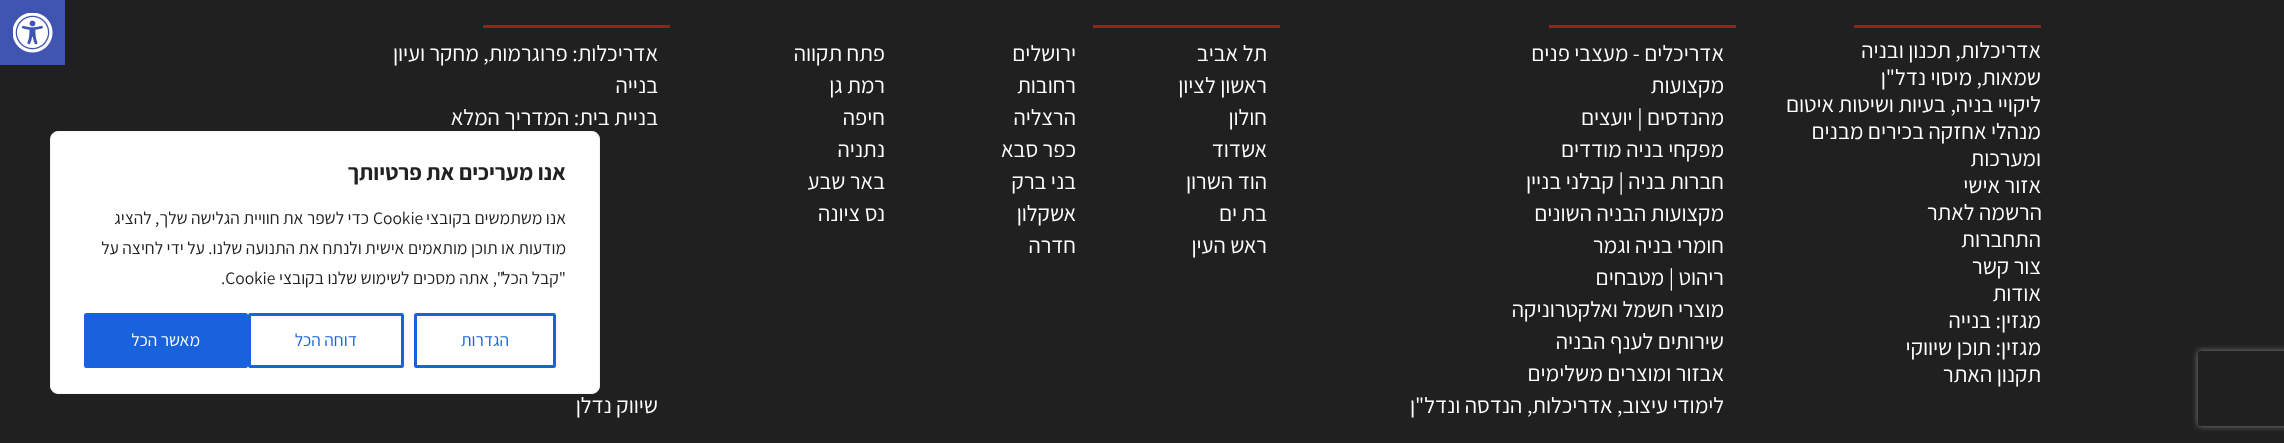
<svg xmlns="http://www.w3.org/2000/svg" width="2284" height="443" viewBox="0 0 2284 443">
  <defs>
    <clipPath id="clip1"><rect x="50" y="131" width="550" height="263" rx="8"/></clipPath>
    <clipPath id="clip2"><path d="M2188 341H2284V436H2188ZM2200.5 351H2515.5C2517 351 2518 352 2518 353.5V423.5C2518 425 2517 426 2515.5 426H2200.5C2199 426 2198 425 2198 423.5V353.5C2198 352 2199 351 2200.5 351Z" clip-rule="evenodd"/></clipPath>
  </defs>
  <rect width="100%" height="100%" fill="rgb(32,32,33)"/>
  <rect x="0" y="0" width="65" height="65" fill="rgb(64,84,178)"/>
  <image x="13" y="13" width="40" height="40" href="pic1.png"/>
  <rect x="1854" y="25" width="187" height="3" fill="rgb(151,31,29)"/>
  <g font-family="Assistant" font-size="22.5" direction="rtl" fill="rgb(255,255,255)">
    <text>
      <tspan x="2041" y="58">אדריכלות, תכנון ובניה</tspan>
      <tspan x="2041" y="85">שמאות, מיסוי נדל"ן</tspan>
      <tspan x="2041" y="112">ליקויי בניה, בעיות ושיטות איטום</tspan>
      <tspan x="2041" y="139">מנהלי אחזקה בכירים מבנים</tspan>
      <tspan x="2041" y="166">ומערכות</tspan>
      <tspan x="2041" y="193">אזור אישי</tspan>
    </text>
    <text x="2042" y="220">הרשמה לאתר</text>
    <text>
      <tspan x="2041" y="247">התחברות</tspan>
      <tspan x="2041" y="274">צור קשר</tspan>
      <tspan x="2041" y="301">אודות</tspan>
      <tspan x="2041" y="328">מגזין: בנייה</tspan>
      <tspan x="2041" y="355">מגזין: תוכן שיווקי</tspan>
      <tspan x="2041" y="382">תקנון האתר</tspan>
    </text>
  </g>
  <rect x="1549" y="25" width="187" height="3" fill="rgb(151,31,29)"/>
  <g font-family="Assistant" font-size="22.5" direction="rtl" fill="rgb(255,255,255)">
    <text>
      <tspan x="1724" y="61">אדריכלים - מעצבי פנים</tspan>
      <tspan x="1724" y="93">מקצועות</tspan>
      <tspan x="1724" y="125">מהנדסים | יועצים</tspan>
      <tspan x="1724" y="157">מפקחי בניה מודדים</tspan>
      <tspan x="1724" y="189">חברות בניה | קבלני בניין</tspan>
      <tspan x="1724" y="221">מקצועות הבניה השונים</tspan>
      <tspan x="1724" y="253">חומרי בניה וגמר</tspan>
      <tspan x="1724" y="285">ריהוט | מטבחים</tspan>
      <tspan x="1724" y="317">מוצרי חשמל ואלקטרוניקה</tspan>
      <tspan x="1724" y="349">שירותים לענף הבניה</tspan>
      <tspan x="1724" y="381">אבזור ומוצרים משלימים</tspan>
      <tspan x="1724" y="413">לימודי עיצוב, אדריכלות, הנדסה ונדל"ן</tspan>
    </text>
  </g>
  <rect x="1093" y="25" width="187" height="3" fill="rgb(151,31,29)"/>
  <g font-family="Assistant" font-size="22.5" direction="rtl" fill="rgb(255,255,255)">
    <text x="1267" y="61">תל אביב</text>
    <text x="1076" y="61">ירושלים</text>
    <text x="885" y="61">פתח תקווה</text>
    <text x="1267" y="93">ראשון לציון</text>
    <text x="1076" y="93">רחובות</text>
    <text x="885" y="93">רמת גן</text>
    <text x="1267" y="125">חולון</text>
    <text x="1076" y="125">הרצליה</text>
    <text x="885" y="125">חיפה</text>
    <text x="1267" y="157">אשדוד</text>
    <text x="1076" y="157">כפר סבא</text>
    <text x="885" y="157">נתניה</text>
    <text x="1267" y="189">הוד השרון</text>
    <text x="1076" y="189">בני ברק</text>
    <text x="885" y="189">באר שבע</text>
    <text x="1267" y="221">בת ים</text>
    <text x="1076" y="221">אשקלון</text>
    <text x="885" y="221">נס ציונה</text>
    <text x="1267" y="253">ראש העין</text>
    <text x="1076" y="253">חדרה</text>
  </g>
  <rect x="483" y="25" width="187" height="3" fill="rgb(151,31,29)"/>
  <g font-family="Assistant" font-size="22.5" direction="rtl" fill="rgb(255,255,255)">
    <text>
      <tspan x="658" y="61">אדריכלות: פרוגרמות, מחקר ועיון</tspan>
      <tspan x="658" y="93">בנייה</tspan>
      <tspan x="658" y="125">בניית בית: המדריך המלא</tspan>
    </text>
    <text x="658" y="413">שיווק נדלן</text>
  </g>
  <g clip-path="url(#clip1)">
    <rect x="50" y="130" width="550" height="263" rx="8" fill="rgba(172,171,171,0.3)" filter="blur(6px)"/>
  </g>
  <rect x="50.5" y="131.5" width="549" height="262" rx="7.5" fill="rgb(255,255,255)" stroke="rgb(244,244,244)"/>
  <text x="566" y="180" font-family="Assistant" font-size="22.5" font-weight="bold" direction="rtl" fill="rgb(33,33,33)">אנו מעריכים את פרטיותך</text>
  <text x="566" y="224" font-family="Assistant" font-size="17.5" direction="rtl" fill="rgb(33,33,33)">אנו משתמשים בקובצי</text>
  <text x="373" y="224" font-family="Assistant" font-size="17.5" fill="rgb(33,33,33)">Cookie</text>
  <g font-family="Assistant" font-size="17.5" direction="rtl" fill="rgb(33,33,33)">
    <text x="369" y="224">כדי לשפר את חוויית הגלישה שלך, להציג</text>
    <text>
      <tspan x="566" y="254">מודעות או תוכן מותאמים אישית ולנתח את התנועה שלנו. על ידי לחיצה על</tspan>
      <tspan x="566" y="284">"קבל הכל", אתה מסכים לשימוש שלנו בקובצי</tspan>
    </text>
  </g>
  <text x="221" y="284" font-family="Assistant" font-size="17.5" fill="rgb(33,33,33)">.Cookie</text>
  <rect x="415.5" y="314.5" width="139" height="52" rx="1" fill="none" stroke="rgb(24,99,220)" stroke-width="3"/>
  <text x="509" y="346" font-family="Assistant" font-size="17.5" direction="rtl" fill="rgb(24,99,220)">הגדרות</text>
  <rect x="249.5" y="314.5" width="153" height="52" rx="1" fill="none" stroke="rgb(24,99,220)" stroke-width="3"/>
  <text x="357" y="346" font-family="Assistant" font-size="17.5" direction="rtl" fill="rgb(24,99,220)">דוחה הכל</text>
  <rect x="85.5" y="314.5" width="161" height="52" rx="1" fill="rgb(24,99,220)" stroke="rgb(24,99,220)" stroke-width="3"/>
  <text x="200" y="346" font-family="Assistant" font-size="17.5" direction="rtl" fill="rgb(255,255,255)">מאשר הכל</text>
  <g clip-path="url(#clip2)">
    <rect x="2198" y="351" width="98" height="75" rx="2.5" fill="rgb(128,128,128)" filter="blur(3px)"/>
  </g>
</svg>
